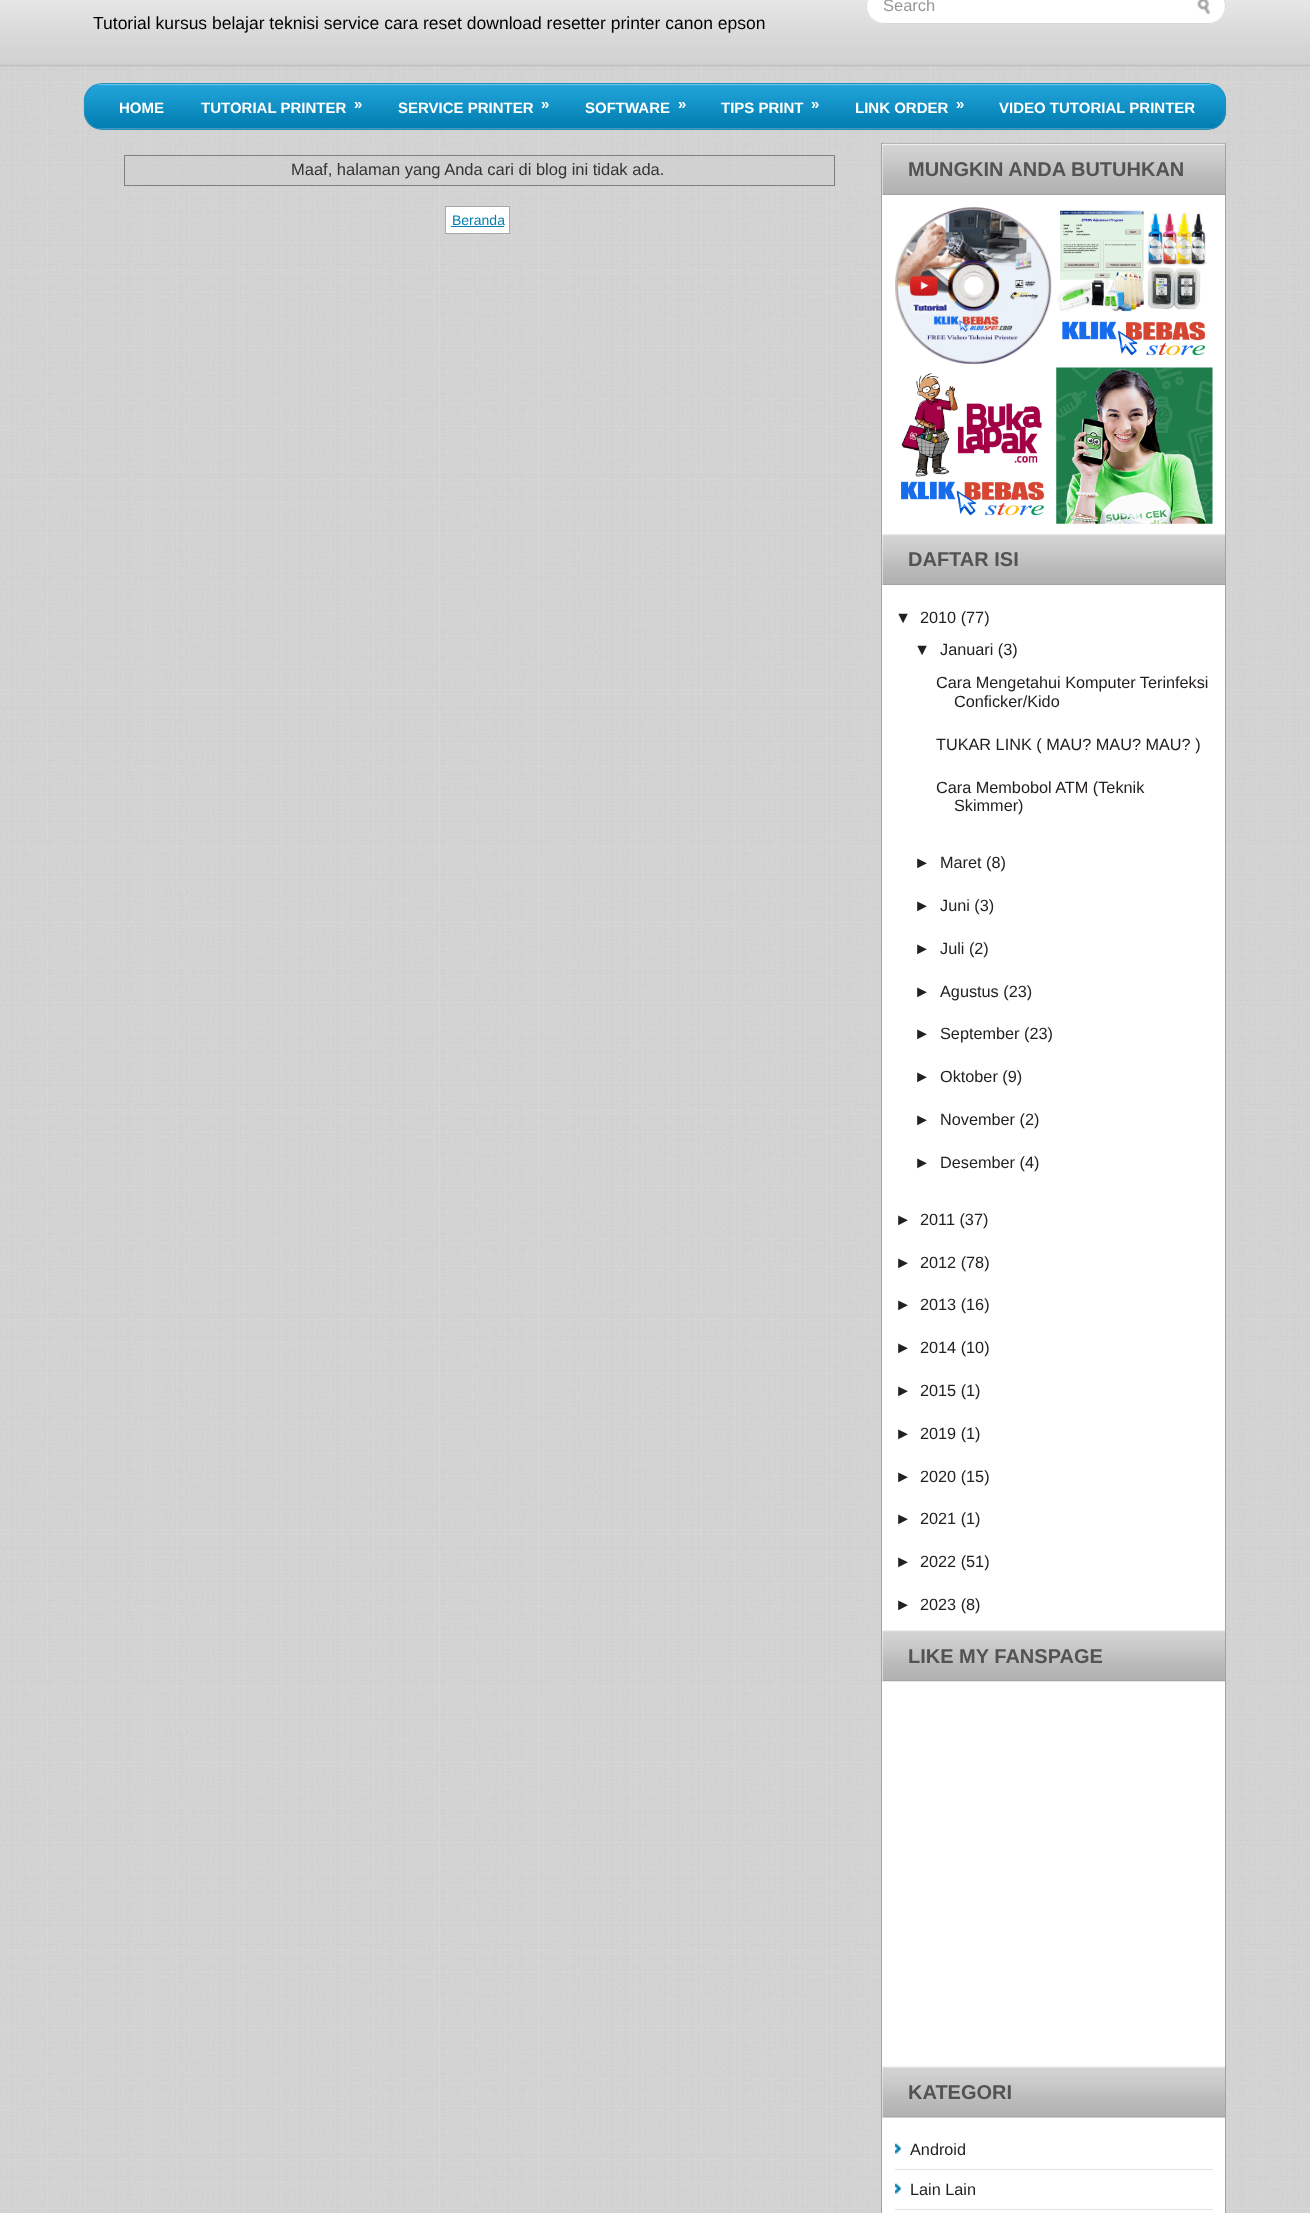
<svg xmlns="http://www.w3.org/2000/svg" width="1310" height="2213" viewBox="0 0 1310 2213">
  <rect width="100%" height="100%" fill="rgb(255,255,255)"/>
  <image x="0" y="66" width="1310" height="2147" href="pic1.png"/>
  <image x="0" y="0" width="1310" height="67" href="pic2.png"/>
  <rect x="866" y="-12" width="360" height="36" rx="18" fill="rgb(255,255,255)"/>
  <image x="1197" y="0" width="14" height="15" href="pic3.png"/>
  <rect x="866.5" y="-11.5" width="359" height="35" rx="17.5" fill="none" stroke="rgb(216,216,216)"/>
  <text x="883" y="11" font-family="Liberation Sans" font-size="16.5" fill="rgb(151,151,151)">Search</text>
  <text x="93" y="29" font-family="Liberation Sans" font-size="17.5" fill="rgb(0,0,0)">Tutorial kursus belajar teknisi service cara reset download resetter printer canon epson</text>
  <image x="83" y="83" width="1144" height="46" href="pic4.png"/>
  <rect x="84.5" y="83.5" width="1141" height="46" rx="18.5" fill="none" stroke="rgb(32,146,192)"/>
  <g font-family="Liberation Sans" font-size="15" font-weight="bold" fill="rgb(255,255,255)">
    <text x="119" y="113">HOME</text>
    <text x="201" y="113">TUTORIAL PRINTER</text>
    <text x="354" y="109">»</text>
    <text x="398" y="113">SERVICE PRINTER</text>
    <text x="541" y="109">»</text>
    <text x="585" y="113">SOFTWARE</text>
    <text x="678" y="109">»</text>
    <text x="721" y="113">TIPS PRINT</text>
    <text x="811" y="109">»</text>
    <text x="855" y="113">LINK ORDER</text>
    <text x="956" y="109">»</text>
    <text x="999" y="113">VIDEO TUTORIAL PRINTER</text>
  </g>
  <rect x="124.5" y="155.5" width="710" height="30" fill="none" stroke="rgba(0,0,0,0.4)"/>
  <rect x="125" y="156" width="709" height="29" fill="rgba(204,204,204,0.32)"/>
  <text x="291" y="175" font-family="Liberation Sans" font-size="16.5" fill="rgb(52,51,51)">Maaf, halaman yang Anda cari di blog ini tidak ada.</text>
  <rect x="445.5" y="206.5" width="64" height="27" fill="rgb(255,255,255)" stroke="rgb(168,168,168)"/>
  <text x="452" y="225" font-family="Liberation Sans" font-size="14" fill="rgb(1,125,176)">Beranda</text>
  <rect x="451" y="226" width="53" height="1" fill="rgb(1,125,176)"/>
  <rect x="881.5" y="143.5" width="344" height="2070" fill="rgb(255,255,255)" stroke="rgb(162,162,162)"/>
  <image x="882" y="143" width="343" height="52" href="pic5.png"/>
  <text x="908" y="176" font-family="Liberation Sans" font-size="20" font-weight="bold" fill="rgb(83,83,83)">MUNGKIN ANDA BUTUHKAN</text>
  <image x="895" y="207" width="157" height="157" href="pic6.png"/>
  <image x="1057" y="210" width="150" height="146" href="pic7.png"/>
  <image x="901" y="373" width="144" height="143" href="pic8.png"/>
  <image x="1056" y="367" width="157" height="157" href="pic9.png"/>
  <image x="882" y="533" width="343" height="52" href="pic10.png"/>
  <text x="908" y="566" font-family="Liberation Sans" font-size="20" font-weight="bold" fill="rgb(83,83,83)">DAFTAR ISI</text>
  <g font-family="Liberation Sans" font-size="16.25" fill="rgb(36,32,33)">
    <text x="895" y="623">▼</text>
    <text x="920" y="623">2010 (77)</text>
    <text x="914" y="655">▼</text>
    <text x="940" y="655">Januari (3)</text>
    <text x="936" y="688">Cara Mengetahui Komputer Terinfeksi</text>
    <text x="954" y="707">Conficker/Kido</text>
    <text x="936" y="750">TUKAR LINK ( MAU? MAU? MAU? )</text>
    <text x="936" y="793">Cara Membobol ATM (Teknik</text>
    <text x="954" y="811">Skimmer)</text>
    <text x="914" y="868">►</text>
    <text x="940" y="868">Maret (8)</text>
    <text x="914" y="911">►</text>
    <text x="940" y="911">Juni (3)</text>
    <text x="914" y="954">►</text>
    <text x="940" y="954">Juli (2)</text>
    <text x="914" y="997">►</text>
    <text x="940" y="997">Agustus (23)</text>
    <text x="914" y="1039">►</text>
    <text x="940" y="1039">September (23)</text>
    <text x="914" y="1082">►</text>
    <text x="940" y="1082">Oktober (9)</text>
    <text x="914" y="1125">►</text>
    <text x="940" y="1125">November (2)</text>
    <text x="914" y="1168">►</text>
    <text x="940" y="1168">Desember (4)</text>
    <text x="895" y="1225">►</text>
    <text x="920" y="1225">2011 (37)</text>
    <text x="895" y="1268">►</text>
    <text x="920" y="1268">2012 (78)</text>
    <text x="895" y="1310">►</text>
    <text x="920" y="1310">2013 (16)</text>
    <text x="895" y="1353">►</text>
    <text x="920" y="1353">2014 (10)</text>
    <text x="895" y="1396">►</text>
    <text x="920" y="1396">2015 (1)</text>
    <text x="895" y="1439">►</text>
    <text x="920" y="1439">2019 (1)</text>
    <text x="895" y="1482">►</text>
    <text x="920" y="1482">2020 (15)</text>
    <text x="895" y="1524">►</text>
    <text x="920" y="1524">2021 (1)</text>
    <text x="895" y="1567">►</text>
    <text x="920" y="1567">2022 (51)</text>
    <text x="895" y="1610">►</text>
    <text x="920" y="1610">2023 (8)</text>
  </g>
  <image x="882" y="1630" width="343" height="52" href="pic11.png"/>
  <text x="908" y="1663" font-family="Liberation Sans" font-size="20" font-weight="bold" fill="rgb(83,83,83)">LIKE MY FANSPAGE</text>
  <image x="882" y="2066" width="343" height="52" href="pic12.png"/>
  <text x="908" y="2099" font-family="Liberation Sans" font-size="20" font-weight="bold" fill="rgb(83,83,83)">KATEGORI</text>
  <image x="895" y="2143" width="7" height="11" href="pic13.png"/>
  <rect x="895" y="2169" width="318" height="1" fill="rgb(227,225,225)"/>
  <text x="910" y="2155" font-family="Liberation Sans" font-size="16.25" fill="rgb(36,32,33)">Android</text>
  <image x="895" y="2183" width="7" height="11" href="pic13.png"/>
  <rect x="895" y="2209" width="318" height="1" fill="rgb(227,225,225)"/>
  <text x="910" y="2195" font-family="Liberation Sans" font-size="16.25" fill="rgb(36,32,33)">Lain Lain</text>
</svg>
